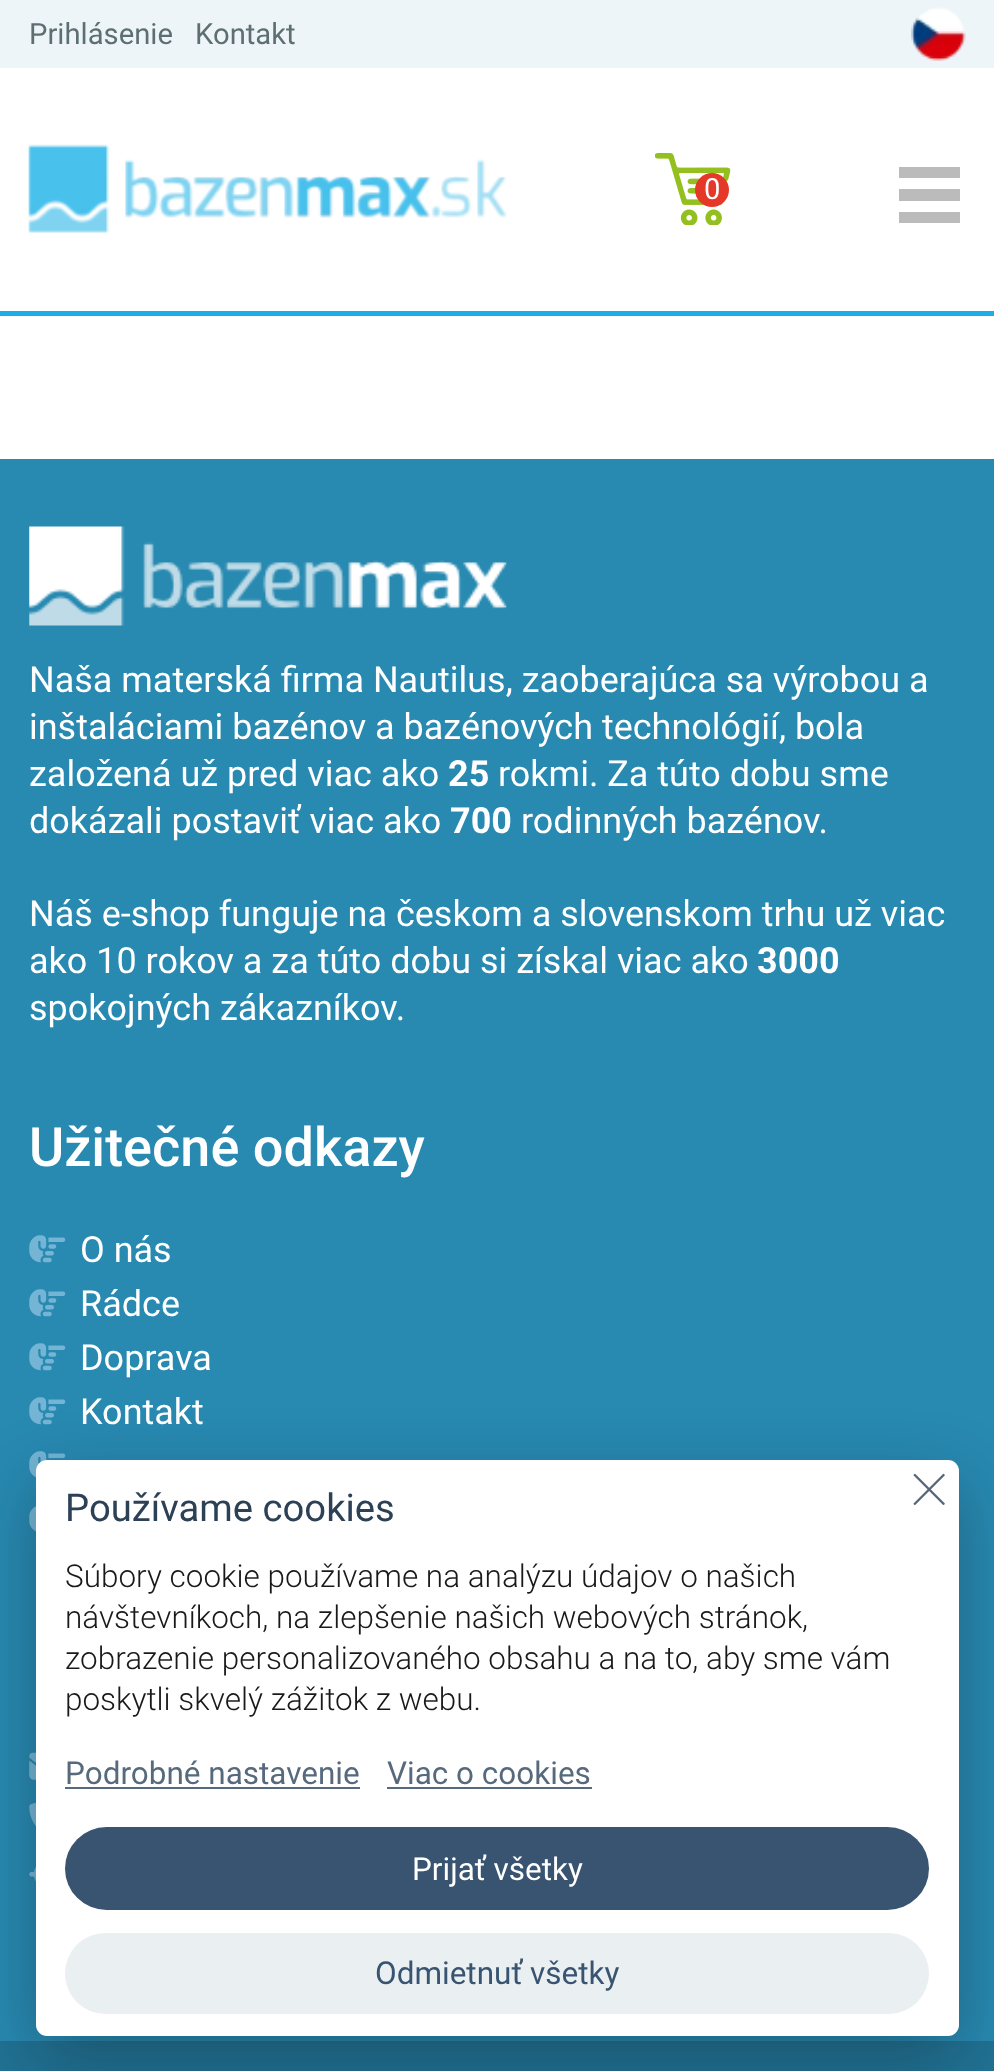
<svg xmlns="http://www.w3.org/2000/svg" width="994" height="2071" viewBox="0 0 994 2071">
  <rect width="100%" height="100%" fill="rgb(255,255,255)"/>
  <rect x="0" y="0" width="994" height="68" fill="rgb(237,245,248)"/>
  <g font-family="Roboto" font-size="29.25" fill="rgb(94,111,116)">
    <text x="29" y="44">Prihlásenie</text>
    <text x="195" y="44">Kontakt</text>
  </g>
  <image x="911" y="7" width="55" height="54" href="pic1.png"/>
  <rect x="0" y="311" width="994" height="5" fill="rgb(29,173,232)"/>
  <image x="28" y="144" width="479" height="89" href="pic2.png"/>
  <image x="655" y="153" width="76" height="72" href="pic3.png"/>
  <circle cx="712" cy="190" r="17" fill="rgb(230,56,41)"/>
  <text x="704" y="199" font-family="Roboto" font-size="29.25" fill="rgb(255,255,255)">0</text>
  <rect x="899" y="167" width="61" height="11" fill="rgb(187,187,187)"/>
  <rect x="899" y="189" width="61" height="12" fill="rgb(187,187,187)"/>
  <rect x="899" y="212" width="61" height="11" fill="rgb(187,187,187)"/>
  <rect x="0" y="459" width="994" height="1582" fill="rgb(40,137,177)"/>
  <image x="29" y="526" width="478" height="100" href="pic4.png"/>
  <g font-family="Roboto" font-size="36" fill="rgb(255,255,255)">
    <text>
      <tspan x="29" y="692">Naša materská firma Nautilus, zaoberajúca sa výrobou a</tspan>
      <tspan x="29" y="739">inštaláciami bazénov a bazénových technológií, bola</tspan>
      <tspan x="29" y="786">založená už pred viac ako</tspan>
    </text>
  </g>
  <text x="448" y="786" font-family="Roboto" font-size="36" font-weight="bold" fill="rgb(255,255,255)">25</text>
  <g font-family="Roboto" font-size="36" fill="rgb(255,255,255)">
    <text x="498" y="786">rokmi. Za túto dobu sme</text>
    <text x="29" y="833">dokázali postaviť viac ako</text>
  </g>
  <text x="450" y="833" font-family="Roboto" font-size="36" font-weight="bold" fill="rgb(255,255,255)">700</text>
  <g font-family="Roboto" font-size="36" fill="rgb(255,255,255)">
    <text x="521" y="833">rodinných bazénov.</text>
    <text>
      <tspan x="29" y="926">Náš e-shop funguje na českom a slovenskom trhu už viac</tspan>
      <tspan x="29" y="973">ako 10 rokov a za túto dobu si získal viac ako</tspan>
    </text>
  </g>
  <text x="757" y="973" font-family="Roboto" font-size="36" font-weight="bold" fill="rgb(255,255,255)">3000</text>
  <text x="29" y="1020" font-family="Roboto" font-size="36" fill="rgb(255,255,255)">spokojných zákazníkov.</text>
  <text x="29" y="1166" font-family="Roboto" font-size="54" font-weight="500" fill="rgb(255,255,255)">Užitečné odkazy</text>
  <image x="29" y="1235" width="37" height="28" href="pic5.png"/>
  <text x="80" y="1262" font-family="Roboto" font-size="36" fill="rgb(255,255,255)">O nás</text>
  <image x="29" y="1289" width="37" height="28" href="pic5.png"/>
  <text x="80" y="1316" font-family="Roboto" font-size="36" fill="rgb(255,255,255)">Rádce</text>
  <image x="29" y="1343" width="37" height="28" href="pic5.png"/>
  <text x="80" y="1370" font-family="Roboto" font-size="36" fill="rgb(255,255,255)">Doprava</text>
  <image x="29" y="1397" width="37" height="28" href="pic5.png"/>
  <text x="80" y="1424" font-family="Roboto" font-size="36" fill="rgb(255,255,255)">Kontakt</text>
  <image x="29" y="1451" width="37" height="27" href="pic6.png"/>
  <image x="29" y="1506" width="7" height="26" href="pic7.png"/>
  <image x="29" y="1752" width="7" height="28" href="pic8.png"/>
  <image x="29" y="1802" width="7" height="24" href="pic9.png"/>
  <image x="29" y="1867" width="7" height="15" href="pic10.png"/>
  <rect x="0" y="2041" width="994" height="30" fill="rgb(33,114,148)"/>
  <rect x="36" y="1483" width="923" height="576" rx="11" fill="rgba(2,2,3,0.28)" filter="blur(34px)"/>
  <rect x="36" y="1460" width="923" height="576" rx="11" fill="rgb(255,255,255)"/>
  <text x="65" y="1521" font-family="Roboto" font-size="38.25" fill="rgb(45,65,86)">Používame cookies</text>
  <g font-family="Roboto" font-size="31.5" font-weight="300" fill="rgb(25,25,25)">
    <text>
      <tspan x="65" y="1587">Súbory cookie používame na analýzu údajov o našich</tspan>
      <tspan x="65" y="1628">návštevníkoch, na zlepšenie našich webových stránok,</tspan>
      <tspan x="65" y="1669">zobrazenie personalizovaného obsahu a na to, aby sme vám</tspan>
      <tspan x="65" y="1710">poskytli skvelý zážitok z webu.</tspan>
    </text>
  </g>
  <text x="65" y="1784" font-family="Roboto" font-size="31.5" fill="rgb(87,106,125)">Podrobné nastavenie</text>
  <rect x="65" y="1787" width="295" height="2" fill="rgb(87,106,125)"/>
  <text x="387" y="1784" font-family="Roboto" font-size="31.5" fill="rgb(87,106,125)">Viac o cookies</text>
  <rect x="387" y="1787" width="205" height="2" fill="rgb(87,106,125)"/>
  <image x="913" y="1473" width="32" height="32" href="pic11.png"/>
  <rect x="65" y="1827" width="864" height="83" rx="41.5" fill="rgb(57,84,112)"/>
  <text x="412" y="1880" font-family="Roboto" font-size="31.5" fill="rgb(255,255,255)">Prijať všetky</text>
  <rect x="65" y="1933" width="864" height="81" rx="40.5" fill="rgb(234,239,242)"/>
  <text x="375" y="1984" font-family="Roboto" font-size="31.5" fill="rgb(57,84,112)">Odmietnuť všetky</text>
</svg>
